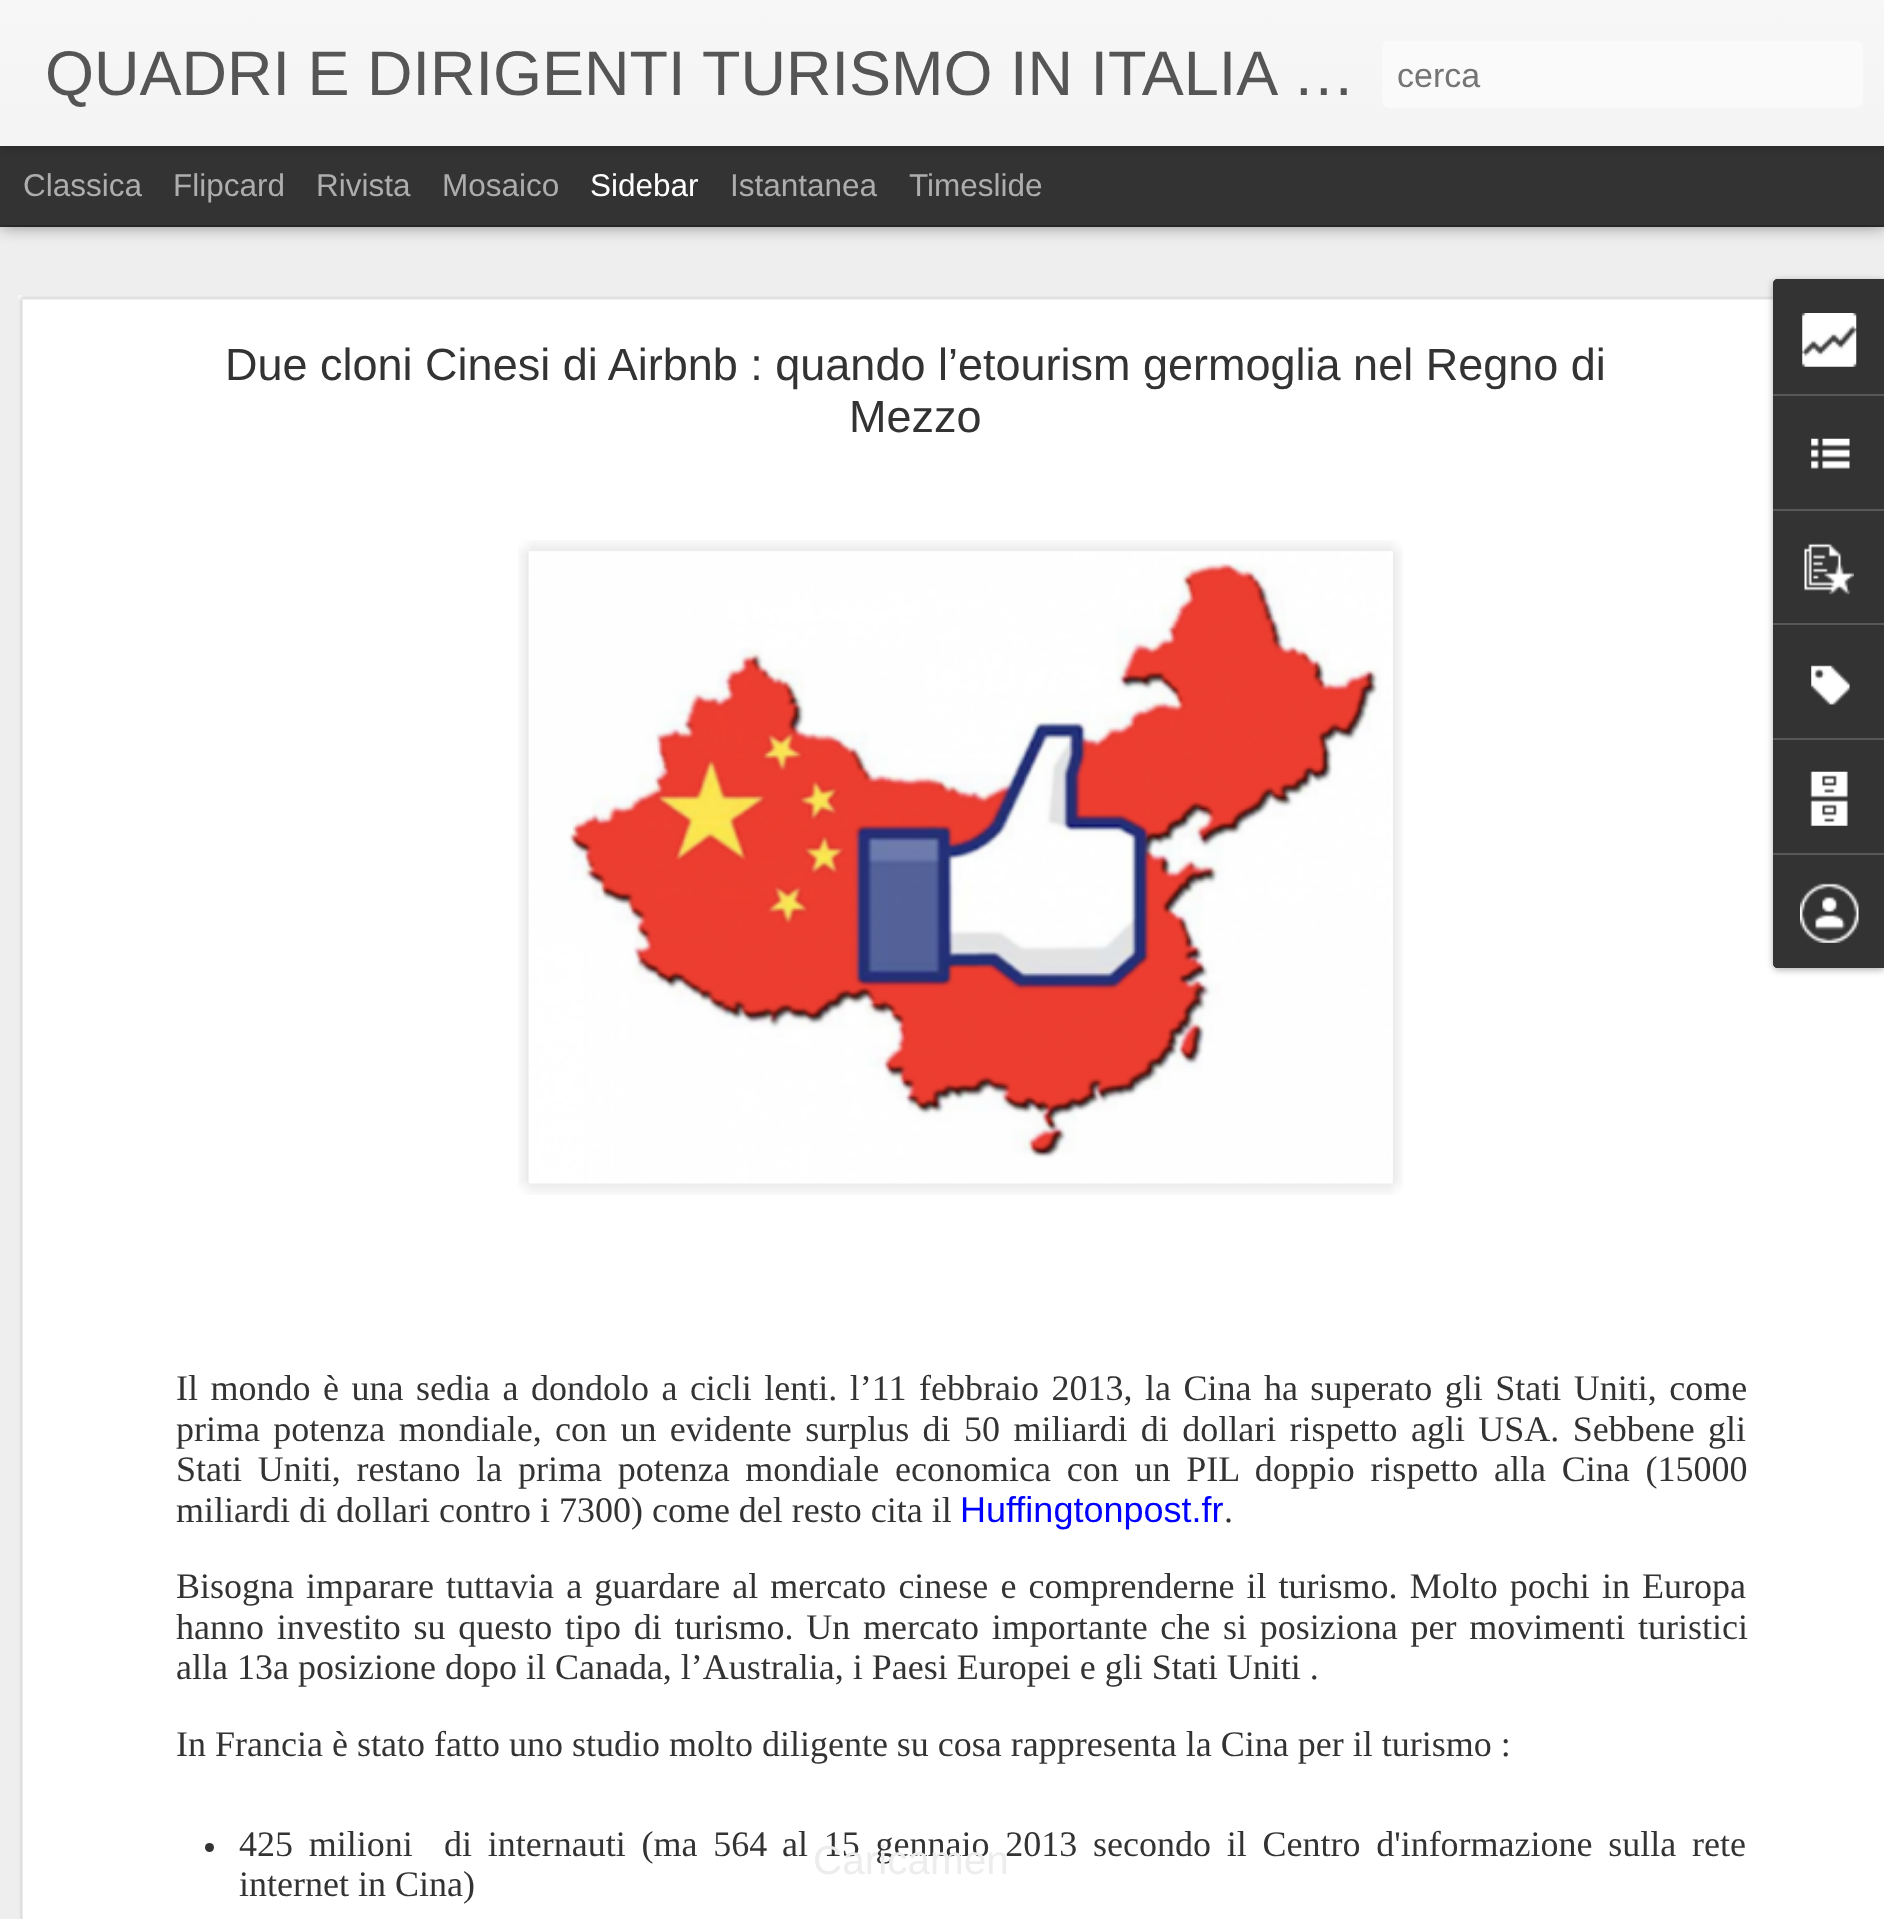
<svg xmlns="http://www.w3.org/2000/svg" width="1884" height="1919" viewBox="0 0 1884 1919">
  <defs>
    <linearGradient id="g1" gradientUnits="userSpaceOnUse" x1="0" y1="0" x2="0" y2="146"><stop offset="0" stop-color="rgb(247,247,247)"/><stop offset="1" stop-color="rgb(244,244,244)"/></linearGradient>
  </defs>
  <rect width="100%" height="100%" fill="rgb(51,51,51)"/>
  <rect x="0" y="227" width="1884" height="1692" fill="rgb(238,238,238)"/>
  <rect x="0" y="146" width="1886" height="79" fill="rgba(0,0,0,0.5)" filter="blur(9px)"/>
  <rect x="0" y="146" width="1884" height="79" fill="rgb(51,51,51)"/>
  <rect x="0" y="0" width="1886" height="146" fill="rgba(0,0,0,0.3)" filter="blur(5.5px)"/>
  <rect x="0" y="0" width="1884" height="146" fill="url(#g1)"/>
  <text x="45" y="95" font-family="Liberation Sans" font-size="63" fill="rgb(85,85,85)">QUADRI E DIRIGENTI TURISMO IN ITALIA …</text>
  <rect x="1382" y="41" width="481" height="67" rx="7" fill="rgb(250,250,250)"/>
  <text x="1397" y="87" font-family="Liberation Sans" font-size="34" fill="rgb(117,117,117)">cerca</text>
  <g font-family="Liberation Sans" font-size="31.5" fill="rgb(173,173,173)">
    <text x="23" y="196">Classica</text>
    <text x="173" y="196">Flipcard</text>
    <text x="316" y="196">Rivista</text>
    <text x="442" y="196">Mosaico</text>
  </g>
  <text x="590" y="196" font-family="Liberation Sans" font-size="31.5" fill="rgb(255,255,255)">Sidebar</text>
  <g font-family="Liberation Sans" font-size="31.5" fill="rgb(173,173,173)">
    <text x="730" y="196">Istantanea</text>
    <text x="909" y="196">Timeslide</text>
  </g>
  <rect x="18" y="295" width="1866" height="1624" fill="rgb(255,255,255)"/>
  <image x="18" y="295" width="1755" height="1624" href="pic1.png"/>
  <g font-family="Liberation Sans" font-size="45" fill="rgb(51,51,51)">
    <text x="225" y="380">Due cloni Cinesi di Airbnb : quando l’etourism germoglia nel Regno di</text>
    <text x="849" y="432">Mezzo</text>
  </g>
  <image x="518" y="540" width="885" height="655" href="pic2.png"/>
  <image x="528" y="550" width="866" height="635" href="pic3.png"/>
  <g font-family="Liberation Serif" font-size="36" fill="rgb(51,51,51)">
    <text>
      <tspan x="176" y="1400" word-spacing="3.5">Il mondo è una sedia a dondolo a cicli lenti. l’11 febbraio 2013, la Cina ha superato gli Stati Uniti, come</tspan>
      <tspan x="176" y="1441" word-spacing="4.4">prima potenza mondiale, con un evidente surplus di 50 miliardi di dollari rispetto agli USA. Sebbene gli</tspan>
      <tspan x="176" y="1481" word-spacing="6.75">Stati Uniti, restano la prima potenza mondiale economica con un PIL doppio rispetto alla Cina (15000</tspan>
      <tspan x="176" y="1522">miliardi di dollari contro i 7300) come del resto cita il</tspan>
    </text>
  </g>
  <text x="960" y="1522" font-family="Liberation Sans" font-size="36" fill="rgb(0,0,255)">Huffingtonpost.fr</text>
  <g font-family="Liberation Serif" font-size="36" fill="rgb(51,51,51)">
    <text x="1224" y="1522">.</text>
    <text>
      <tspan x="176" y="1598" word-spacing="3.1">Bisogna imparare tuttavia a guardare al mercato cinese e comprenderne il turismo. Molto pochi in Europa</tspan>
      <tspan x="176" y="1639" word-spacing="3.75">hanno investito su questo tipo di turismo. Un mercato importante che si posiziona per movimenti turistici</tspan>
      <tspan x="176" y="1679">alla 13a posizione dopo il Canada, l’Australia, i Paesi Europei e gli Stati Uniti .</tspan>
    </text>
    <text x="176" y="1756">In Francia è stato fatto uno studio molto diligente su cosa rappresenta la Cina per il turismo :</text>
  </g>
  <circle cx="209.5" cy="1847.5" r="4.5" fill="rgb(51,51,51)"/>
  <g font-family="Liberation Serif" font-size="36" fill="rgb(51,51,51)">
    <text x="239" y="1856" word-spacing="6.75">425 milioni</text>
    <text x="444" y="1856" word-spacing="6.75">di internauti (ma 564</text>
    <text x="782" y="1856" word-spacing="6.75">al 15 gennaio 2013 secondo il Centro d'informazione sulla rete</text>
    <text x="239" y="1896">internet in Cina)</text>
  </g>
  <rect x="1773" y="281" width="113" height="689" rx="5" fill="rgba(0,0,0,0.3)" filter="blur(3.5px)"/>
  <path d="M1778 279H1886V968H1778C1775 968 1773 966 1773 963V284C1773 281 1775 279 1778 279Z" fill="rgb(51,51,51)"/>
  <path d="M1778 279H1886V394H1773V284C1773 281 1775 279 1778 279Z" fill="rgb(51,51,51)"/>
  <image x="1802" y="313" width="55" height="54" href="pic4.png"/>
  <rect x="1773" y="394" width="111" height="2" fill="rgb(88,88,88)"/>
  <image x="1811" y="438" width="39" height="31" href="pic5.png"/>
  <rect x="1773" y="509" width="111" height="2" fill="rgb(88,88,88)"/>
  <image x="1804" y="543" width="50" height="52" href="pic6.png"/>
  <rect x="1773" y="623" width="111" height="2" fill="rgb(88,88,88)"/>
  <image x="1811" y="665" width="39" height="40" href="pic7.png"/>
  <rect x="1773" y="738" width="111" height="2" fill="rgb(88,88,88)"/>
  <image x="1810" y="771" width="38" height="55" href="pic8.png"/>
  <path d="M1773 853H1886V968H1778C1775 968 1773 966 1773 963Z" fill="rgb(51,51,51)"/>
  <rect x="1773" y="853" width="111" height="2" fill="rgb(88,88,88)"/>
  <image x="1800" y="883" width="59" height="60" href="pic9.png"/>
  <text x="813" y="1874" font-family="Liberation Sans" font-size="40.5" fill="rgb(237,237,237)">Caricamen</text>
</svg>
